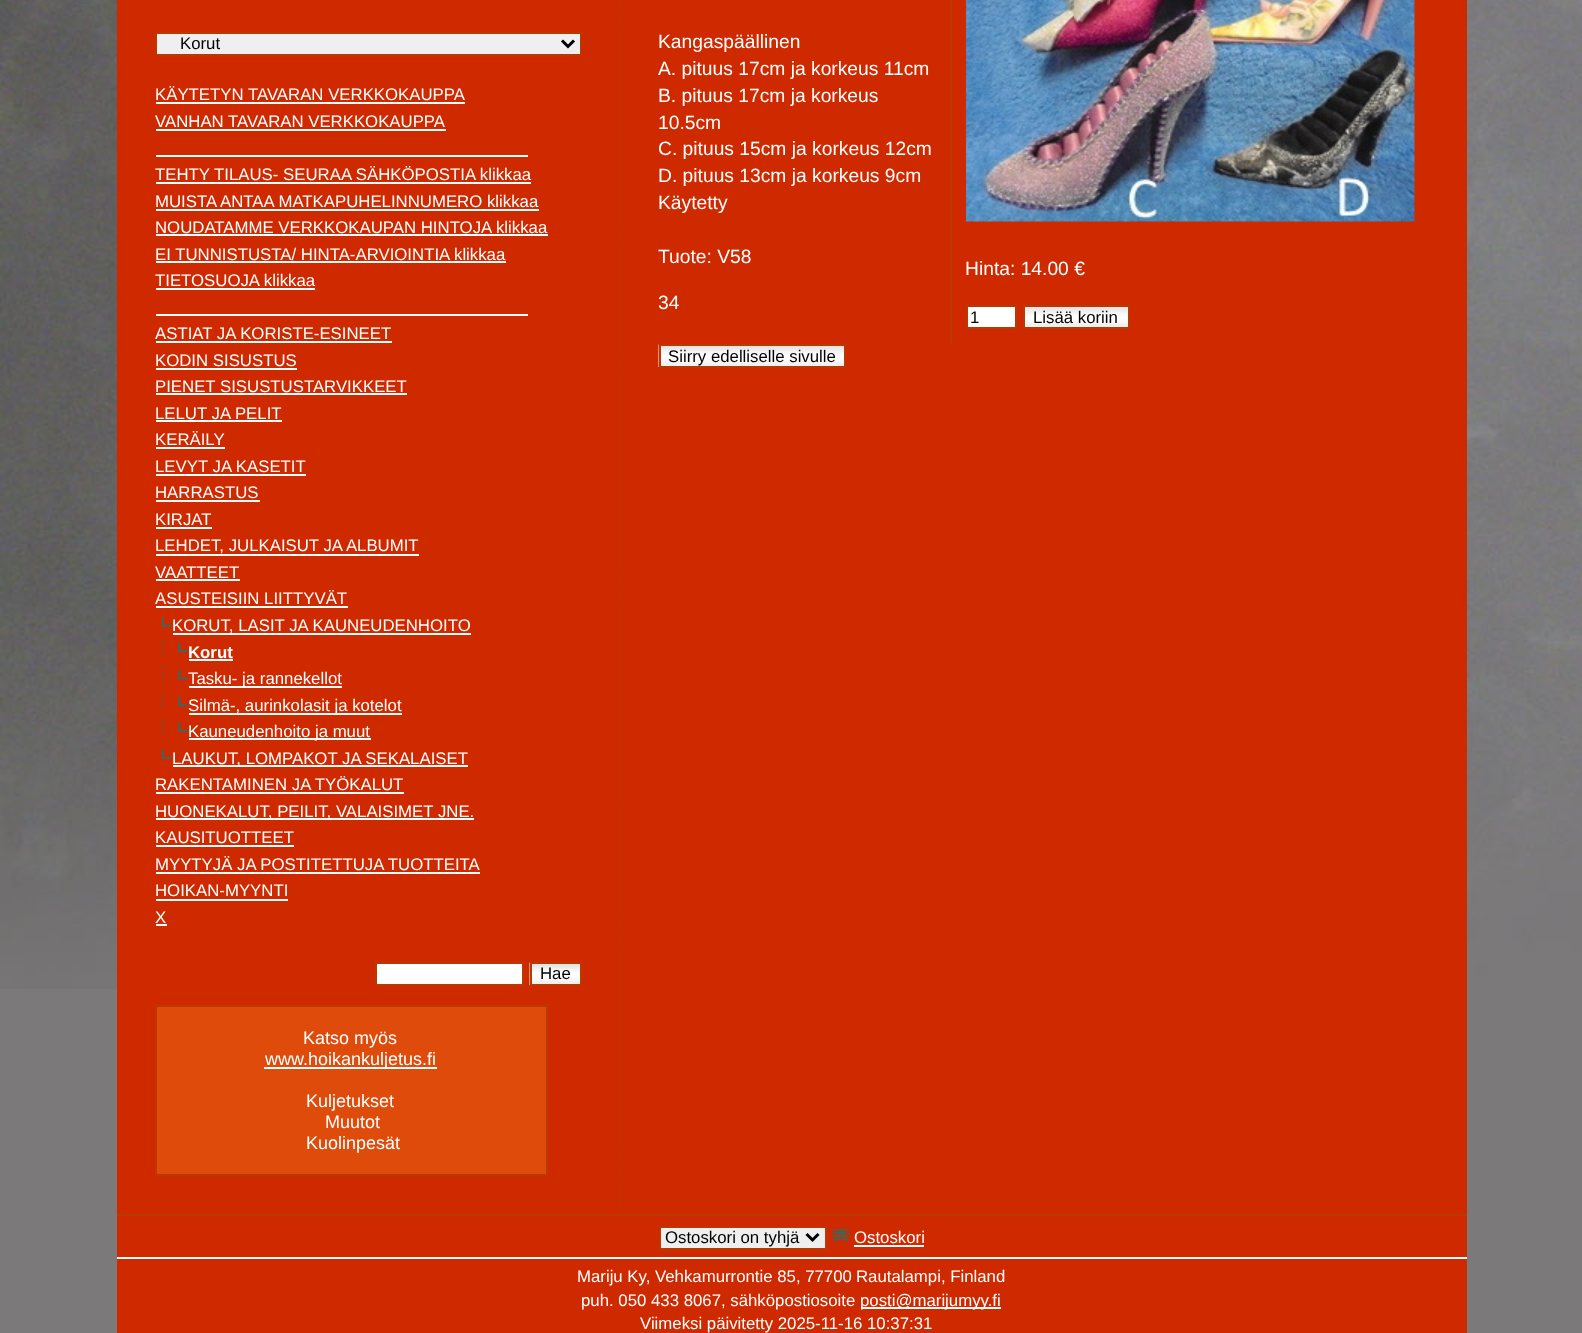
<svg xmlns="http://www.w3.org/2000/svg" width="1582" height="1333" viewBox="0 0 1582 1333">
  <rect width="100%" height="100%" fill="rgb(123,121,122)"/>
  <image x="0" y="0" width="1582" height="989" href="pic1.png"/>
  <rect x="117" y="0" width="1350" height="1214" fill="rgb(207,41,0)"/>
  <path d="M620-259.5V1213.5" fill="none" stroke="rgb(185,57,0)" stroke-width="1.5" stroke-dasharray="4.5 2.98"/>
  <rect x="156" y="33" width="425" height="22" fill="rgb(239,239,239)" stroke="rgb(185,57,0)" stroke-width="2"/>
  <path d="M562 40.5L568 46.5L574 40.5" fill="none" stroke="rgb(0,0,0)" stroke-width="3"/>
  <text x="180" y="49" font-family="Liberation Sans" font-size="16.8" fill="rgb(0,0,0)">Korut</text>
  <text x="155" y="100" font-family="Liberation Sans" font-size="16.8" fill="rgb(255,255,255)">KÄYTETYN TAVARAN VERKKOKAUPPA</text>
  <rect x="156" y="102" width="309" height="2" fill="rgb(255,255,255)"/>
  <text x="155" y="127" font-family="Liberation Sans" font-size="16.8" fill="rgb(255,255,255)">VANHAN TAVARAN VERKKOKAUPPA</text>
  <rect x="156" y="129" width="290" height="2" fill="rgb(255,255,255)"/>
  <rect x="156" y="155" width="372" height="2" fill="rgb(255,255,255)"/>
  <text x="155" y="180" font-family="Liberation Sans" font-size="16.8" fill="rgb(255,255,255)">TEHTY TILAUS- SEURAA SÄHKÖPOSTIA klikkaa</text>
  <rect x="156" y="182" width="375" height="2" fill="rgb(255,255,255)"/>
  <text x="155" y="207" font-family="Liberation Sans" font-size="16.8" fill="rgb(255,255,255)">MUISTA ANTAA MATKAPUHELINNUMERO klikkaa</text>
  <rect x="156" y="209" width="383" height="2" fill="rgb(255,255,255)"/>
  <text x="155" y="233" font-family="Liberation Sans" font-size="16.8" fill="rgb(255,255,255)">NOUDATAMME VERKKOKAUPAN HINTOJA klikkaa</text>
  <rect x="156" y="234" width="392" height="2" fill="rgb(255,255,255)"/>
  <text x="155" y="260" font-family="Liberation Sans" font-size="16.8" fill="rgb(255,255,255)">EI TUNNISTUSTA/ HINTA-ARVIOINTIA klikkaa</text>
  <rect x="156" y="261" width="350" height="2" fill="rgb(255,255,255)"/>
  <text x="155" y="286" font-family="Liberation Sans" font-size="16.8" fill="rgb(255,255,255)">TIETOSUOJA klikkaa</text>
  <rect x="156" y="288" width="159" height="2" fill="rgb(255,255,255)"/>
  <rect x="156" y="314" width="372" height="2" fill="rgb(255,255,255)"/>
  <text x="155" y="339" font-family="Liberation Sans" font-size="16.8" fill="rgb(255,255,255)">ASTIAT JA KORISTE-ESINEET</text>
  <rect x="156" y="341" width="236" height="2" fill="rgb(255,255,255)"/>
  <text x="155" y="366" font-family="Liberation Sans" font-size="16.8" fill="rgb(255,255,255)">KODIN SISUSTUS</text>
  <rect x="156" y="368" width="141" height="2" fill="rgb(255,255,255)"/>
  <text x="155" y="392" font-family="Liberation Sans" font-size="16.8" fill="rgb(255,255,255)">PIENET SISUSTUSTARVIKKEET</text>
  <rect x="156" y="393" width="251" height="2" fill="rgb(255,255,255)"/>
  <text x="155" y="419" font-family="Liberation Sans" font-size="16.8" fill="rgb(255,255,255)">LELUT JA PELIT</text>
  <rect x="156" y="420" width="126" height="2" fill="rgb(255,255,255)"/>
  <text x="155" y="445" font-family="Liberation Sans" font-size="16.8" fill="rgb(255,255,255)">KERÄILY</text>
  <rect x="156" y="447" width="69" height="2" fill="rgb(255,255,255)"/>
  <text x="155" y="472" font-family="Liberation Sans" font-size="16.8" fill="rgb(255,255,255)">LEVYT JA KASETIT</text>
  <rect x="156" y="474" width="150" height="2" fill="rgb(255,255,255)"/>
  <text x="155" y="498" font-family="Liberation Sans" font-size="16.8" fill="rgb(255,255,255)">HARRASTUS</text>
  <rect x="156" y="500" width="104" height="2" fill="rgb(255,255,255)"/>
  <text x="155" y="525" font-family="Liberation Sans" font-size="16.8" fill="rgb(255,255,255)">KIRJAT</text>
  <rect x="156" y="527" width="56" height="2" fill="rgb(255,255,255)"/>
  <text x="155" y="551" font-family="Liberation Sans" font-size="16.8" fill="rgb(255,255,255)">LEHDET, JULKAISUT JA ALBUMIT</text>
  <rect x="156" y="554" width="263" height="2" fill="rgb(255,255,255)"/>
  <text x="155" y="578" font-family="Liberation Sans" font-size="16.8" fill="rgb(255,255,255)">VAATTEET</text>
  <rect x="156" y="579" width="84" height="2" fill="rgb(255,255,255)"/>
  <text x="155" y="604" font-family="Liberation Sans" font-size="16.8" fill="rgb(255,255,255)">ASUSTEISIIN LIITTYVÄT</text>
  <rect x="156" y="606" width="192" height="2" fill="rgb(255,255,255)"/>
  <image x="161" y="617" width="11" height="10" href="pic2.png"/>
  <rect x="173" y="633" width="298" height="2" fill="rgb(255,255,255)"/>
  <text x="172" y="631" font-family="Liberation Sans" font-size="16.8" fill="rgb(255,255,255)">KORUT, LASIT JA KAUNEUDENHOITO</text>
  <image x="161" y="640" width="3" height="14" href="pic3.png"/>
  <image x="178" y="642" width="10" height="11" href="pic4.png"/>
  <text x="188" y="658" font-family="Liberation Sans" font-size="16.8" font-weight="bold" fill="rgb(255,255,255)">Korut</text>
  <rect x="189" y="659" width="44" height="2" fill="rgb(255,255,255)"/>
  <image x="161" y="667" width="3" height="14" href="pic3.png"/>
  <image x="178" y="669" width="10" height="11" href="pic4.png"/>
  <rect x="189" y="686" width="153" height="2" fill="rgb(255,255,255)"/>
  <text x="188" y="684" font-family="Liberation Sans" font-size="16.8" fill="rgb(255,255,255)">Tasku- ja rannekellot</text>
  <image x="161" y="694" width="3" height="14" href="pic3.png"/>
  <image x="178" y="696" width="10" height="11" href="pic4.png"/>
  <rect x="189" y="713" width="213" height="2" fill="rgb(255,255,255)"/>
  <text x="188" y="711" font-family="Liberation Sans" font-size="16.8" fill="rgb(255,255,255)">Silmä-, aurinkolasit ja kotelot</text>
  <image x="161" y="719" width="3" height="15" href="pic5.png"/>
  <image x="178" y="722" width="10" height="10" href="pic6.png"/>
  <rect x="189" y="738" width="182" height="2" fill="rgb(255,255,255)"/>
  <text x="188" y="737" font-family="Liberation Sans" font-size="16.8" fill="rgb(255,255,255)">Kauneudenhoito ja muut</text>
  <image x="161" y="749" width="11" height="10" href="pic2.png"/>
  <rect x="173" y="765" width="295" height="2" fill="rgb(255,255,255)"/>
  <g font-family="Liberation Sans" font-size="16.8" fill="rgb(255,255,255)">
    <text x="172" y="764">LAUKUT, LOMPAKOT JA SEKALAISET</text>
    <text x="155" y="790">RAKENTAMINEN JA TYÖKALUT</text>
  </g>
  <rect x="156" y="792" width="248" height="2" fill="rgb(255,255,255)"/>
  <rect x="156" y="818" width="318" height="2" fill="rgb(255,255,255)"/>
  <g font-family="Liberation Sans" font-size="16.8" fill="rgb(255,255,255)">
    <text>
      <tspan x="155" y="817">HUONEKALUT, PEILIT, VALAISIMET JNE.</tspan>
      <tspan x="155" y="843">KAUSITUOTTEET</tspan>
    </text>
  </g>
  <rect x="156" y="845" width="138" height="2" fill="rgb(255,255,255)"/>
  <text x="155" y="870" font-family="Liberation Sans" font-size="16.8" fill="rgb(255,255,255)">MYYTYJÄ JA POSTITETTUJA TUOTTEITA</text>
  <rect x="156" y="872" width="324" height="2" fill="rgb(255,255,255)"/>
  <text x="155" y="896" font-family="Liberation Sans" font-size="16.8" fill="rgb(255,255,255)">HOIKAN-MYYNTI</text>
  <rect x="156" y="899" width="132" height="2" fill="rgb(255,255,255)"/>
  <text x="155" y="923" font-family="Liberation Sans" font-size="16.8" fill="rgb(255,255,255)">X</text>
  <rect x="156" y="924" width="11" height="2" fill="rgb(255,255,255)"/>
  <rect x="376" y="963" width="147" height="22" fill="rgb(255,255,255)" stroke="rgb(185,57,0)" stroke-width="2"/>
  <image x="529" y="962" width="51" height="23" href="pic7.png"/>
  <rect x="531" y="963" width="50" height="22" fill="none" stroke="rgb(185,57,0)" stroke-width="2"/>
  <text x="540" y="979" font-family="Liberation Sans" font-size="16.8" fill="rgb(0,0,0)">Hae</text>
  <rect x="156" y="1006" width="391" height="169" fill="rgb(222,75,10)" stroke="rgb(185,57,0)" stroke-width="2"/>
  <text x="303" y="1044" font-family="Liberation Sans" font-size="18" fill="rgb(255,255,255)">Katso myös</text>
  <rect x="264" y="1067" width="173" height="2" fill="rgb(255,255,255)"/>
  <g font-family="Liberation Sans" font-size="18" fill="rgb(255,255,255)">
    <text x="265" y="1065">www.hoikankuljetus.fi</text>
    <text x="306" y="1107">Kuljetukset</text>
    <text x="325" y="1128">Muutot</text>
    <text x="306" y="1149">Kuolinpesät</text>
  </g>
  <g font-family="Liberation Sans" font-size="19.25" fill="rgb(255,255,255)">
    <text>
      <tspan x="658" y="48">Kangaspäällinen</tspan>
      <tspan x="658" y="75">A. pituus 17cm ja korkeus 11cm</tspan>
      <tspan x="658" y="102">B. pituus 17cm ja korkeus</tspan>
      <tspan x="658" y="129">10.5cm</tspan>
      <tspan x="658" y="155">C. pituus 15cm ja korkeus 12cm</tspan>
      <tspan x="658" y="182">D. pituus 13cm ja korkeus 9cm</tspan>
      <tspan x="658" y="209">Käytetty</tspan>
    </text>
    <text x="658" y="263">Tuote: V58</text>
    <text x="658" y="309">34</text>
  </g>
  <rect x="950" y="0" width="2" height="344" fill="rgb(185,57,0)"/>
  <image x="966" y="0" width="449" height="222" href="pic8.png"/>
  <text x="965" y="275" font-family="Liberation Sans" font-size="19.25" fill="rgb(255,255,255)">Hinta: 14.00 €</text>
  <rect x="967" y="306" width="49" height="22" fill="rgb(255,255,255)" stroke="rgb(185,57,0)" stroke-width="2"/>
  <text x="970" y="323" font-family="Liberation Sans" font-size="16.8" fill="rgb(0,0,0)">1</text>
  <rect x="1025" y="324" width="103" height="3" fill="rgb(239,239,239)"/>
  <image x="1025" y="307" width="103" height="17" href="pic9.png"/>
  <rect x="1024" y="306" width="105" height="22" fill="none" stroke="rgb(185,57,0)" stroke-width="2"/>
  <text x="1033" y="323" font-family="Liberation Sans" font-size="16.8" fill="rgb(0,0,0)">Lisää koriin</text>
  <image x="658" y="344" width="186" height="23" href="pic10.png"/>
  <rect x="660" y="345" width="185" height="22" fill="none" stroke="rgb(185,57,0)" stroke-width="2"/>
  <text x="668" y="362" font-family="Liberation Sans" font-size="16.8" fill="rgb(0,0,0)">Siirry edelliselle sivulle</text>
  <rect x="117" y="1216" width="1350" height="41" fill="rgb(207,41,0)"/>
  <rect x="117" y="1214" width="1350" height="2" fill="rgb(185,57,0)"/>
  <rect x="117" y="1257" width="1350" height="2" fill="rgb(255,255,255)"/>
  <rect x="660" y="1227" width="166" height="22" fill="rgb(239,239,239)" stroke="rgb(185,57,0)" stroke-width="2"/>
  <path d="M806.5 1234L812.5 1240L818.5 1234" fill="none" stroke="rgb(0,0,0)" stroke-width="3"/>
  <text x="665" y="1243" font-family="Liberation Sans" font-size="16.8" fill="rgb(0,0,0)">Ostoskori on tyhjä</text>
  <image x="832" y="1229" width="17" height="13" href="pic11.png"/>
  <text x="854" y="1243" font-family="Liberation Sans" font-size="16.8" fill="rgb(255,255,255)">Ostoskori</text>
  <rect x="854" y="1245" width="70" height="2" fill="rgb(255,255,255)"/>
  <rect x="117" y="1259" width="1350" height="74" fill="rgb(207,41,0)"/>
  <g font-family="Liberation Sans" font-size="16.8" fill="rgb(255,255,255)">
    <text x="577" y="1282">Mariju Ky, Vehkamurrontie 85, 77700</text>
    <text x="856" y="1282">Rautalampi, Finland</text>
    <text x="581" y="1306">puh. 050 433 8067, sähköpostiosoite</text>
  </g>
  <rect x="861" y="1307" width="140" height="2" fill="rgb(255,255,255)"/>
  <g font-family="Liberation Sans" font-size="16.8" fill="rgb(255,255,255)">
    <text x="860" y="1306">posti@marijumyy.fi</text>
    <text x="640" y="1329">Viimeksi päivitetty 2025-11-16 10:37:31</text>
  </g>
</svg>
